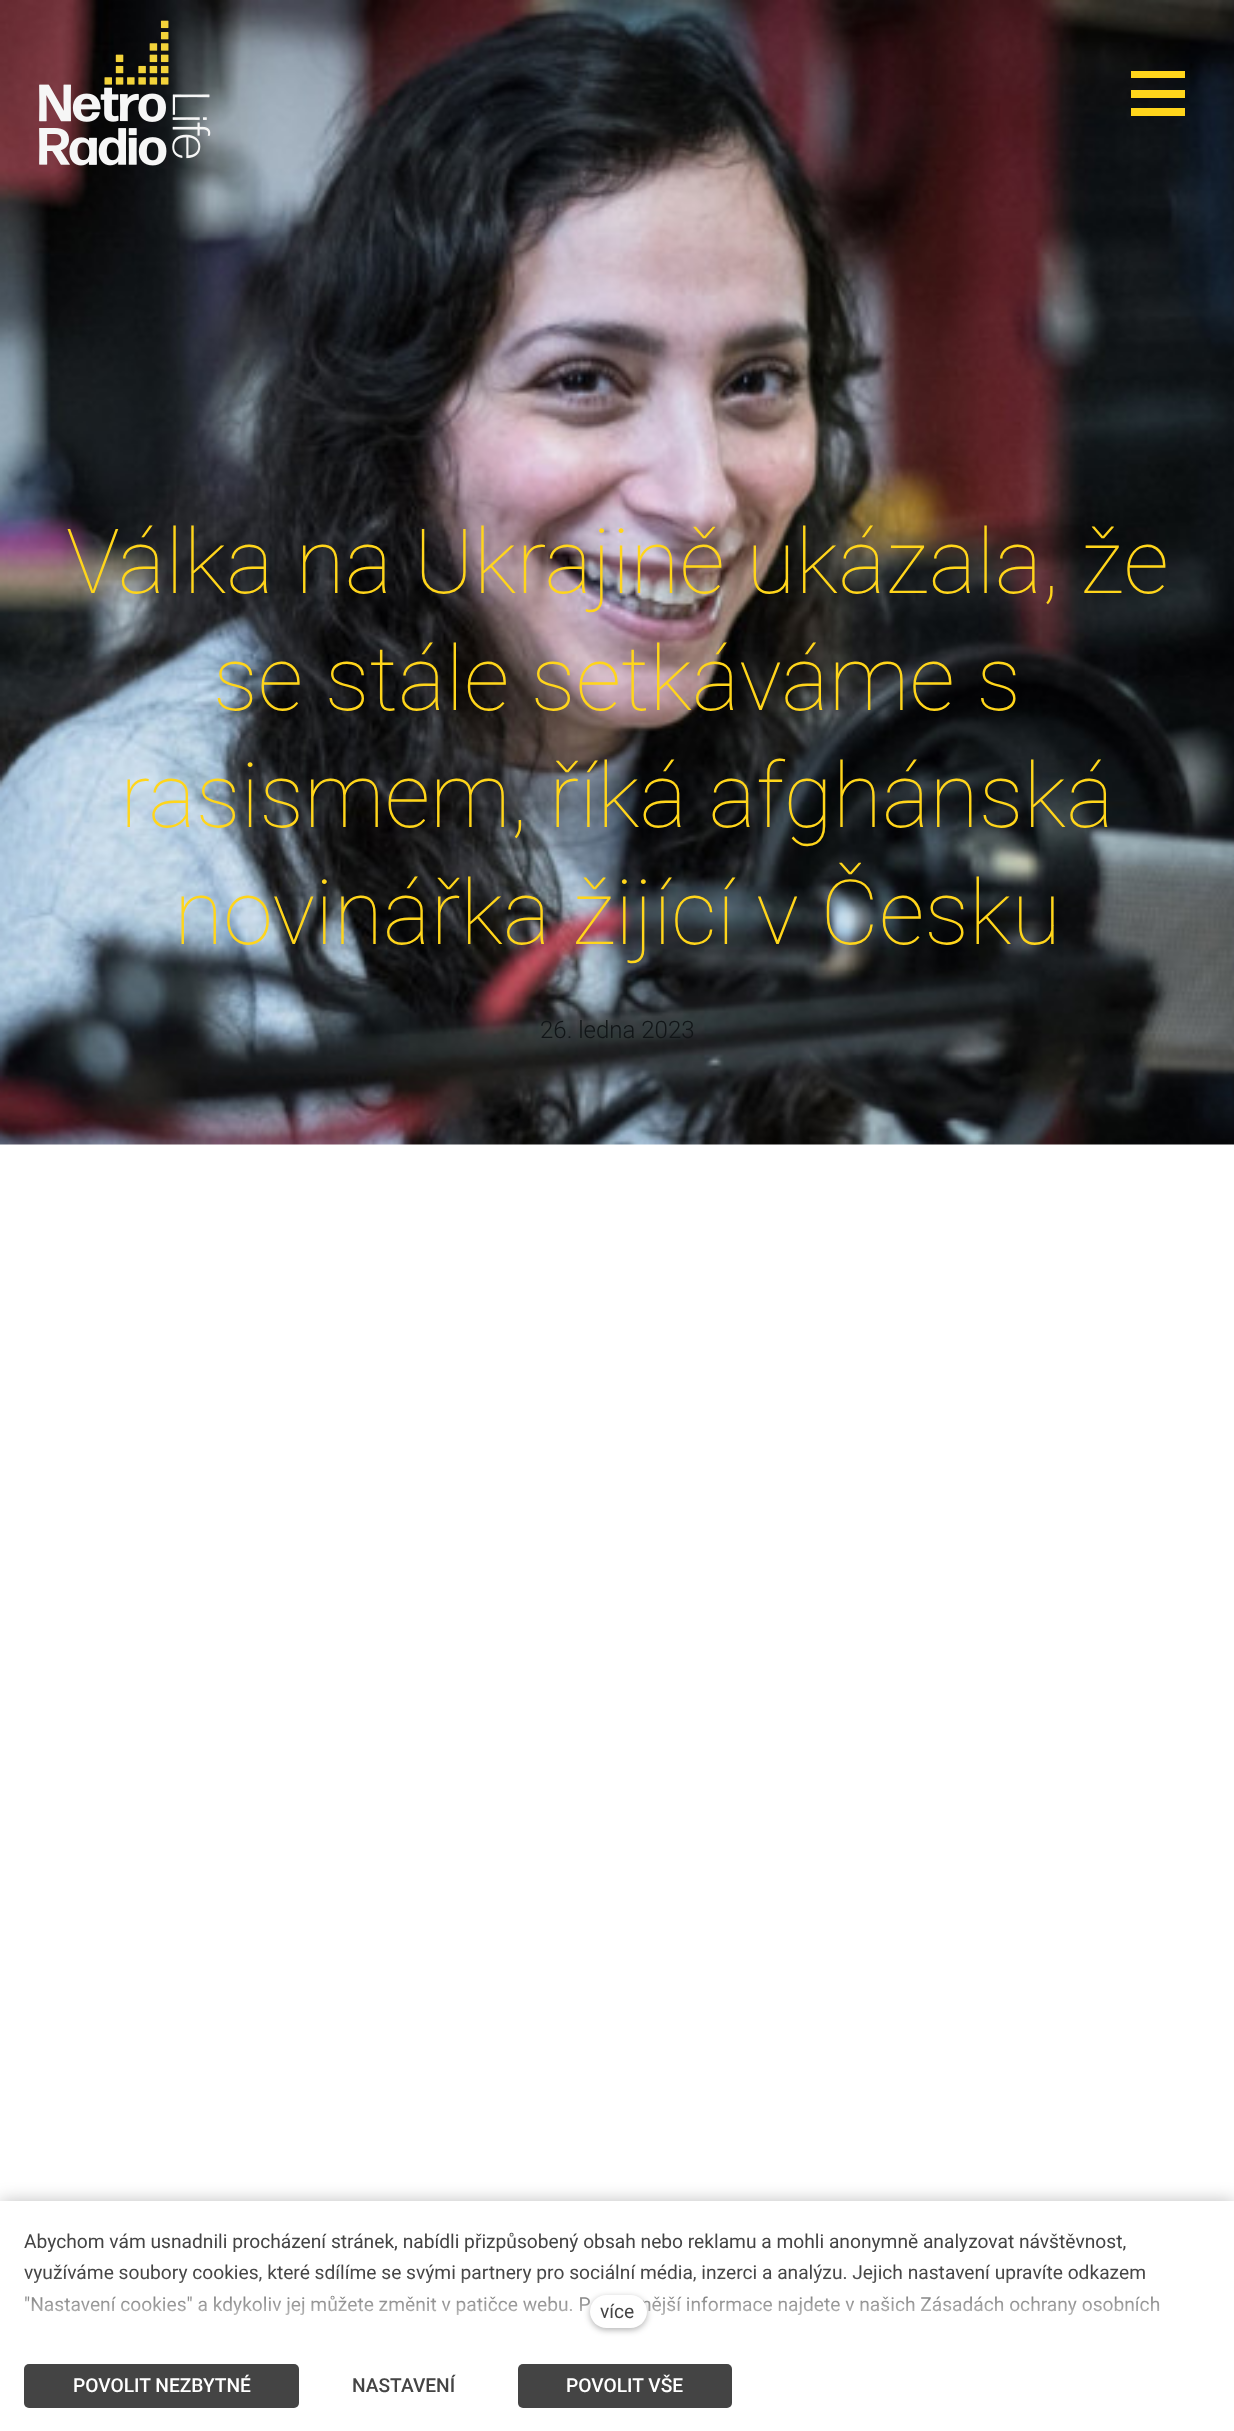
<svg xmlns="http://www.w3.org/2000/svg" width="1234" height="2431" viewBox="0 0 1234 2431">
  <defs>
    <linearGradient id="g1" gradientUnits="userSpaceOnUse" x1="617" y1="2340" x2="617" y2="2274"><stop offset="0" stop-color="rgb(255,255,255)"/><stop offset="1" stop-color="rgb(255,255,255)" stop-opacity="0"/></linearGradient>
  </defs>
  <rect width="100%" height="100%" fill="rgb(255,255,255)"/>
  <image x="0" y="0" width="1234" height="1145" href="pic2.png"/>
  <image x="39" y="20" width="172" height="146" href="pic1.png"/>
  <rect x="1131" y="71" width="54" height="7" fill="rgb(255,213,27)"/>
  <rect x="1131" y="90" width="54" height="8" fill="rgb(255,213,27)"/>
  <rect x="1131" y="108" width="54" height="8" fill="rgb(255,213,27)"/>
  <g font-family="Roboto" font-size="90" font-weight="100" fill="rgb(255,213,27)">
    <text x="66" y="593">Válka na Ukrajině ukázala, že</text>
    <text x="213" y="710">se stále setkáváme s</text>
    <text x="120" y="827">rasismem, říká afghánská</text>
    <text x="174" y="944">novinářka žijící v Česku</text>
  </g>
  <text x="540" y="1038" font-family="Roboto" font-size="24" font-weight="300" fill="rgb(17,21,23)">26. ledna 2023</text>
  <rect x="0" y="2201" width="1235" height="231" fill="rgba(0,0,0,0.25)" filter="blur(9px)"/>
  <rect x="0" y="2201" width="1234" height="230" fill="rgb(255,255,255)"/>
  <g font-family="Roboto" font-size="19.2" fill="rgb(68,68,68)">
    <text>
      <tspan x="24" y="2248">Abychom vám usnadnili procházení stránek, nabídli přizpůsobený obsah nebo reklamu a mohli anonymně analyzovat návštěvnost,</tspan>
      <tspan x="24" y="2279">využíváme soubory cookies, které sdílíme se svými partnery pro sociální média, inzerci a analýzu. Jejich nastavení upravíte odkazem</tspan>
      <tspan x="24" y="2311">"Nastavení cookies" a kdykoliv jej můžete změnit v patičce webu. P</tspan>
    </text>
    <text x="641" y="2311">nější informace najdete v našich Zásadách ochrany osobních</text>
  </g>
  <rect x="25" y="2275" width="1134" height="41" fill="url(#g1)"/>
  <rect x="590" y="2297" width="57" height="33" rx="16.5" fill="rgba(0,0,0,0.3)" filter="blur(3px)"/>
  <rect x="590" y="2295" width="57" height="33" rx="16.5" fill="rgb(255,255,255)"/>
  <text x="600" y="2318" font-family="Roboto" font-size="19.2" fill="rgb(68,68,68)">více</text>
  <rect x="24" y="2364" width="275" height="44" rx="5" fill="rgb(68,68,68)"/>
  <text x="73" y="2392" font-family="Roboto" font-size="19.2" font-weight="500" fill="rgb(255,255,255)">POVOLIT NEZBYTNÉ</text>
  <text x="352" y="2392" font-family="Roboto" font-size="19.2" font-weight="500" fill="rgb(68,68,68)">NASTAVENÍ</text>
  <rect x="518" y="2364" width="214" height="44" rx="5" fill="rgb(68,68,68)"/>
  <text x="566" y="2392" font-family="Roboto" font-size="19.2" font-weight="500" fill="rgb(255,255,255)">POVOLIT VŠE</text>
</svg>
